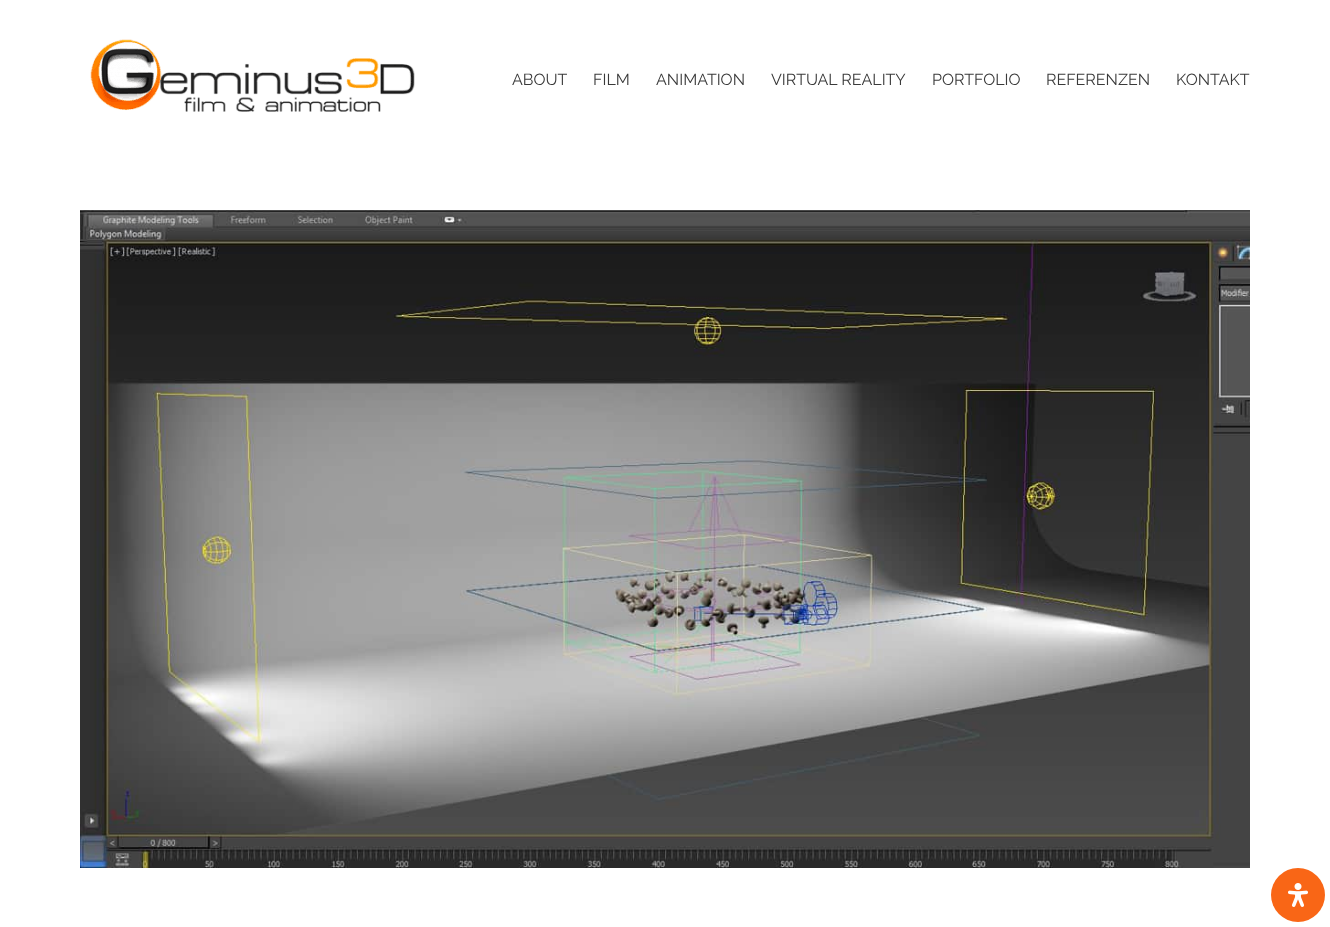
<svg xmlns="http://www.w3.org/2000/svg" width="1330" height="927" viewBox="0 0 1330 927">
  <rect width="100%" height="100%" fill="rgb(255,255,255)"/>
  <image x="90" y="39" width="325" height="73" href="pic1.png"/>
  <g font-family="Raleway" font-size="16" fill="rgb(58,58,58)">
    <text x="512" y="85">ABOUT</text>
    <text x="593" y="85">FILM</text>
    <text x="656" y="85">ANIMATION</text>
    <text x="771" y="85">VIRTUAL REALITY</text>
    <text x="932" y="85">PORTFOLIO</text>
    <text x="1046" y="85">REFERENZEN</text>
    <text x="1176" y="85">KONTAKT</text>
  </g>
  <image x="80" y="210" width="1170" height="658" href="pic2.png"/>
  <circle cx="1298" cy="895" r="27" fill="rgb(249,102,22)"/>
  <image x="1288" y="883" width="20" height="24" href="pic3.png"/>
</svg>
